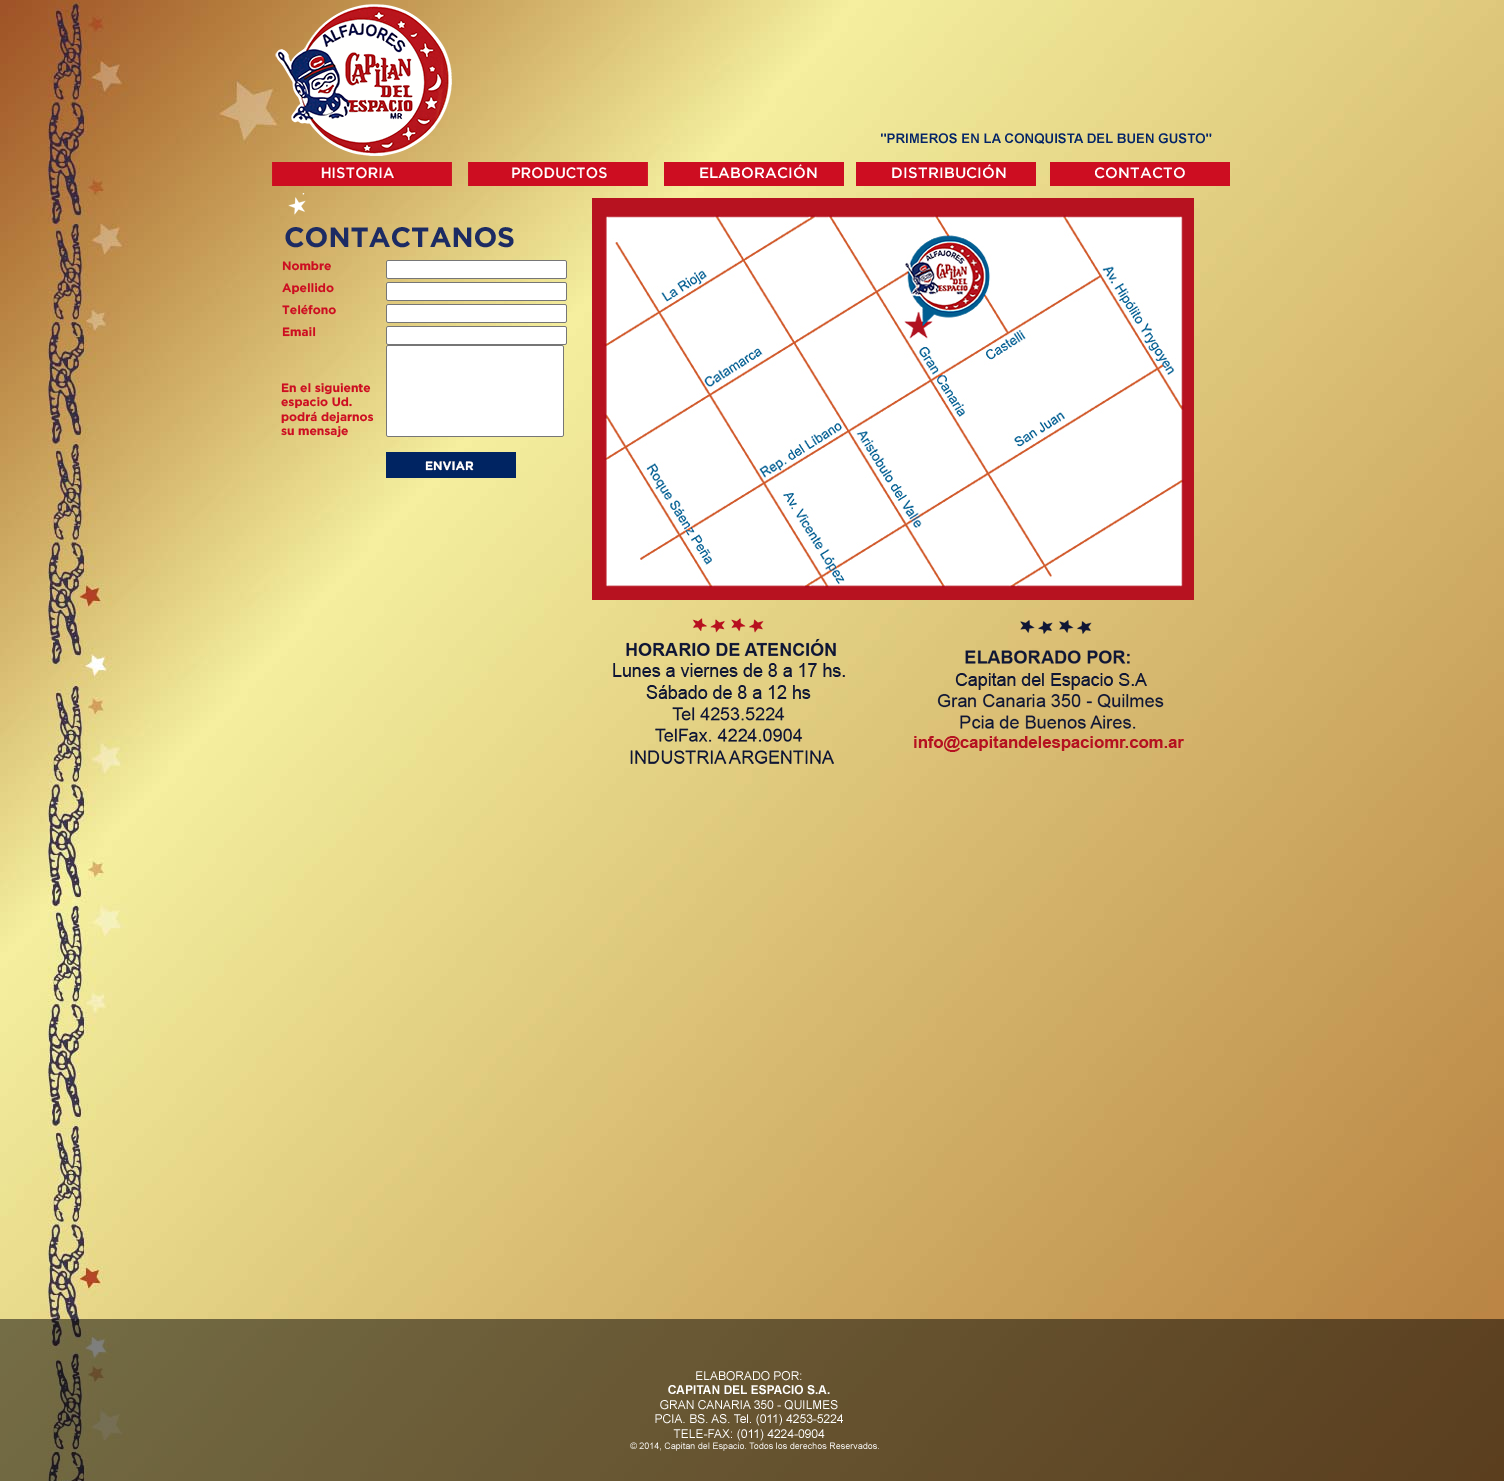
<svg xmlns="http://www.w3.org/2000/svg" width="1504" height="1481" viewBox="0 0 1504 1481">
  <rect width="100%" height="100%" fill="rgb(255,255,255)"/>
  <image x="0" y="0" width="1504" height="1481" href="pic1.png"/>
  <image x="275" y="4" width="937" height="152" href="pic2.png"/>
  <image x="272" y="162" width="958" height="24" href="pic3.png"/>
  <image x="285" y="193" width="229" height="55" href="pic4.png"/>
  <image x="282" y="261" width="49" height="10" href="pic5.png"/>
  <rect x="386.5" y="260.5" width="180" height="18" rx="1.5" fill="rgb(255,255,255)" stroke="rgb(118,118,118)"/>
  <image x="282" y="283" width="52" height="12" href="pic6.png"/>
  <rect x="386.5" y="282.5" width="180" height="18" rx="1.5" fill="rgb(255,255,255)" stroke="rgb(118,118,118)"/>
  <image x="282" y="304" width="54" height="11" href="pic7.png"/>
  <rect x="386.5" y="304.5" width="180" height="18" rx="1.5" fill="rgb(255,255,255)" stroke="rgb(118,118,118)"/>
  <image x="282" y="327" width="34" height="10" href="pic8.png"/>
  <rect x="386.5" y="326.5" width="180" height="18" rx="1.5" fill="rgb(255,255,255)" stroke="rgb(118,118,118)"/>
  <image x="281" y="383" width="93" height="54" href="pic9.png"/>
  <rect x="386.5" y="345.5" width="177" height="91" rx="1.5" fill="rgb(255,255,255)" stroke="rgb(118,118,118)"/>
  <image x="386" y="452" width="130" height="26" href="pic10.png"/>
  <image x="592" y="198" width="602" height="402" href="pic11.png"/>
  <image x="613" y="618" width="232" height="146" href="pic12.png"/>
  <image x="914" y="620" width="270" height="132" href="pic13.png"/>
  <rect x="0" y="1319" width="1504" height="162" fill="rgba(0,0,0,0.5)"/>
  <image x="630" y="1371" width="249" height="80" href="pic14.png"/>
</svg>
